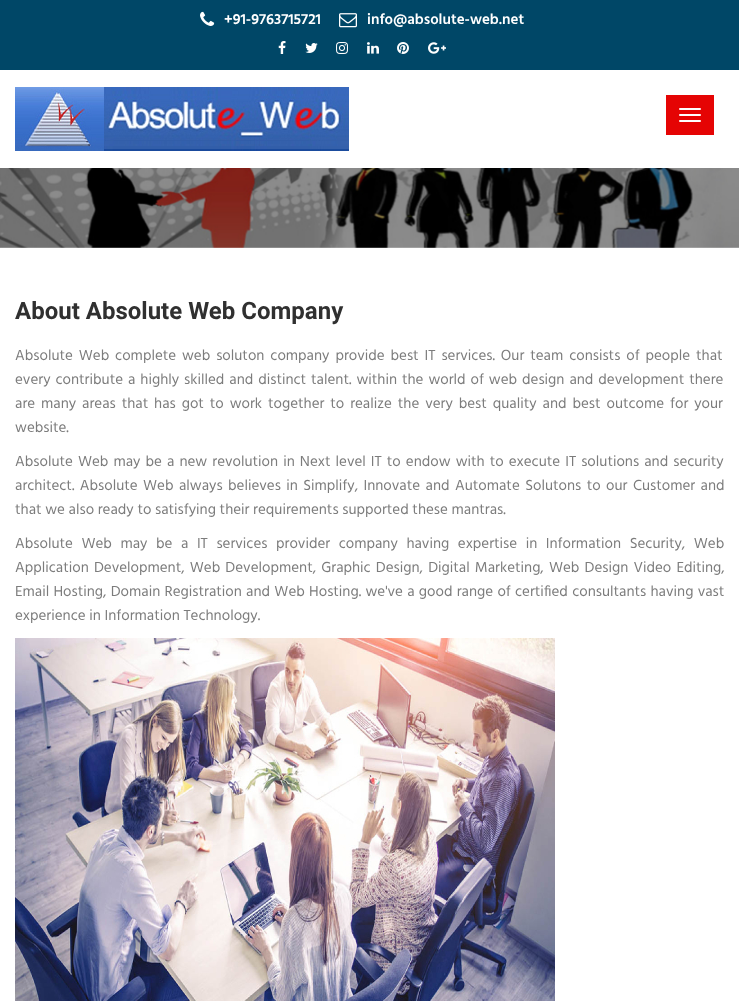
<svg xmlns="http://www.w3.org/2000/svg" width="739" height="1001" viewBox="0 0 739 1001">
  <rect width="100%" height="100%" fill="rgb(255,255,255)"/>
  <rect x="0" y="0" width="739" height="70" fill="rgb(0,71,103)"/>
  <image x="200" y="11" width="15" height="15" href="pic1.png"/>
  <text x="224" y="24" font-family="Hind" font-size="15" font-weight="600" fill="rgb(255,255,255)">+91-9763715721</text>
  <image x="339" y="13" width="18" height="15" href="pic2.png"/>
  <text x="367" y="24" font-family="Hind" font-size="15" font-weight="600" fill="rgb(255,255,255)">info@absolute-web.net</text>
  <image x="278" y="41" width="8" height="13" href="pic3.png"/>
  <image x="305" y="43" width="13" height="10" href="pic4.png"/>
  <image x="336" y="42" width="12" height="12" href="pic5.png"/>
  <image x="367" y="42" width="12" height="12" href="pic6.png"/>
  <image x="397" y="42" width="12" height="12" href="pic7.png"/>
  <image x="428" y="42" width="18" height="12" href="pic8.png"/>
  <image x="15" y="87" width="334" height="64" href="pic9.png"/>
  <rect x="666" y="95" width="48" height="40" fill="rgb(229,4,4)"/>
  <rect x="679" y="108" width="22" height="2" rx="1" fill="rgb(255,255,255)"/>
  <rect x="679" y="114" width="22" height="2" rx="1" fill="rgb(255,255,255)"/>
  <rect x="679" y="120" width="22" height="2" rx="1" fill="rgb(255,255,255)"/>
  <image x="0" y="168" width="739" height="80" href="pic10.png"/>
  <text x="15" y="319" font-family="Roboto" font-size="24" font-weight="bold" fill="rgb(48,48,48)">About Absolute Web Company</text>
  <g font-family="Hind" font-size="15" fill="rgb(124,124,124)">
    <text>
      <tspan x="15" y="360" word-spacing="2.25">Absolute Web complete web soluton company provide best IT services. Our team consists of people that</tspan>
      <tspan x="15" y="384" word-spacing="1.3">every contribute a highly skilled and distinct talent. within the world of web design and development there</tspan>
      <tspan x="15" y="408" word-spacing="2.25">are many areas that has got to work together to realize the very best quality and best outcome for your</tspan>
      <tspan x="15" y="432">website.</tspan>
    </text>
    <text>
      <tspan x="15" y="466" word-spacing="1.4">Absolute Web may be a new revolution in Next level IT to endow with to execute IT solutions and security</tspan>
      <tspan x="15" y="490" word-spacing="1.75">architect. Absolute Web always believes in Simplify, Innovate and Automate Solutons to our Customer and</tspan>
      <tspan x="15" y="514">that we also ready to satisfying their requirements supported these mantras.</tspan>
    </text>
    <text>
      <tspan x="15" y="548" word-spacing="4.9">Absolute Web may be a IT services provider company having expertise in Information Security, Web</tspan>
      <tspan x="15" y="572" word-spacing="1.5">Application Development, Web Development, Graphic Design, Digital Marketing, Web Design Video Editing,</tspan>
      <tspan x="15" y="596" word-spacing="0.6">Email Hosting, Domain Registration and Web Hosting. we've a good range of certified consultants having vast</tspan>
      <tspan x="15" y="620">experience in Information Technology.</tspan>
    </text>
  </g>
  <image x="15" y="638" width="540" height="363" href="pic11.png"/>
</svg>
